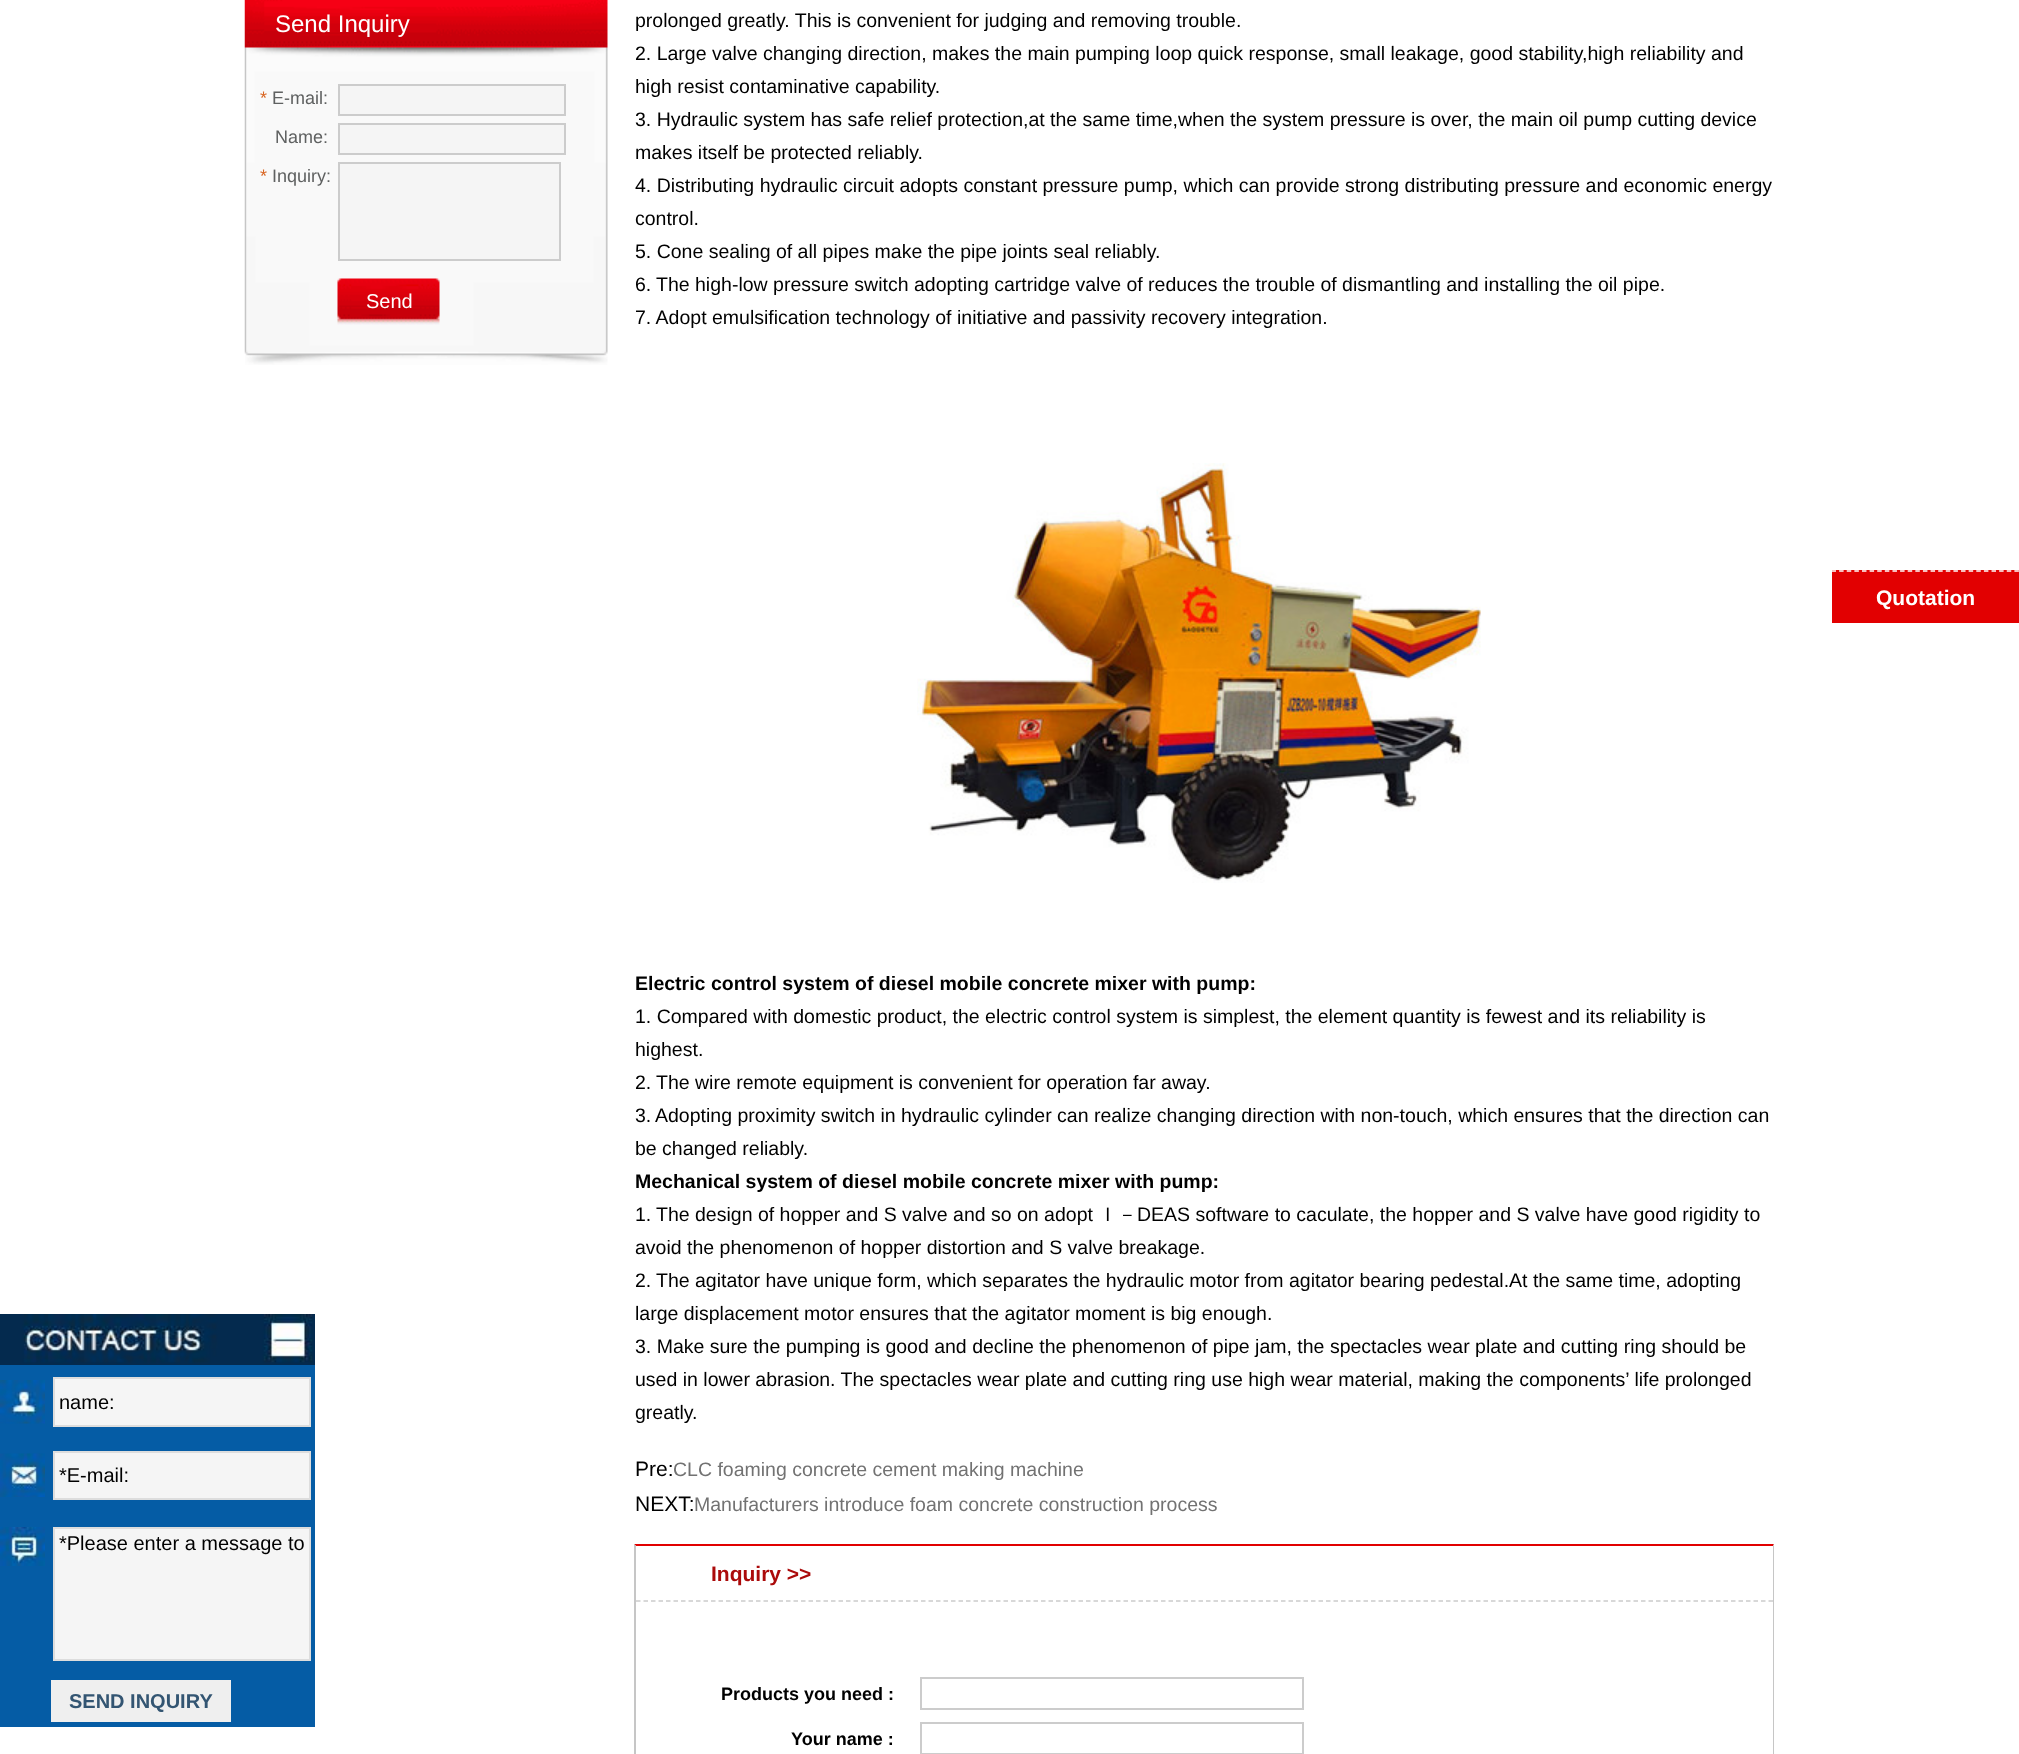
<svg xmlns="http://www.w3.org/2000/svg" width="2019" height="1754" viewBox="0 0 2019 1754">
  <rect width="100%" height="100%" fill="rgb(255,255,255)"/>
  <image x="244" y="0" width="364" height="365" href="pic1.png"/>
  <text x="275" y="32" font-family="Liberation Sans" font-size="24" fill="rgb(255,255,255)">Send Inquiry</text>
  <text x="260" y="104" font-family="Liberation Sans" font-size="18" fill="rgb(217,103,37)">*</text>
  <text x="272" y="104" font-family="Liberation Sans" font-size="18" fill="rgb(95,97,97)">E-mail:</text>
  <rect x="339" y="85" width="226" height="30" fill="rgb(245,245,245)" stroke="rgb(204,204,204)" stroke-width="2"/>
  <text x="275" y="143" font-family="Liberation Sans" font-size="18" fill="rgb(95,97,97)">Name:</text>
  <rect x="339" y="124" width="226" height="30" fill="rgb(245,245,245)" stroke="rgb(204,204,204)" stroke-width="2"/>
  <text x="260" y="182" font-family="Liberation Sans" font-size="18" fill="rgb(217,103,37)">*</text>
  <text x="272" y="182" font-family="Liberation Sans" font-size="18" fill="rgb(95,97,97)">Inquiry:</text>
  <rect x="339" y="163" width="221" height="97" fill="rgb(245,245,245)" stroke="rgb(204,204,204)" stroke-width="2"/>
  <image x="337" y="278" width="103" height="47" href="pic2.png"/>
  <text x="366" y="308" font-family="Liberation Sans" font-size="20" fill="rgb(255,255,255)">Send</text>
  <g font-family="Liberation Sans" font-size="19.5" fill="rgb(0,0,0)">
    <text>
      <tspan x="635" y="27">prolonged greatly. This is convenient for judging and removing trouble.</tspan>
      <tspan x="635" y="60">2. Large valve changing direction, makes the main pumping loop quick response, small leakage, good stability,high reliability and</tspan>
      <tspan x="635" y="93">high resist contaminative capability.</tspan>
      <tspan x="635" y="126">3. Hydraulic system has safe relief protection,at the same time,when the system pressure is over, the main oil pump cutting device</tspan>
      <tspan x="635" y="159">makes itself be protected reliably.</tspan>
      <tspan x="635" y="192">4. Distributing hydraulic circuit adopts constant pressure pump, which can provide strong distributing pressure and economic energy</tspan>
      <tspan x="635" y="225">control.</tspan>
      <tspan x="635" y="258">5. Cone sealing of all pipes make the pipe joints seal reliably.</tspan>
      <tspan x="635" y="291">6.</tspan>
    </text>
    <text x="656" y="291">The high-low pressure switch adopting cartridge valve of reduces the trouble of dismantling and installing the oil pipe.</text>
    <text x="635" y="324">7. Adopt emulsification technology of initiative and passivity recovery integration.</text>
  </g>
  <image x="917" y="463" width="564" height="420" href="pic3.png"/>
  <text x="635" y="990" font-family="Liberation Sans" font-size="19.5" font-weight="bold" fill="rgb(0,0,0)">Electric control system of diesel mobile concrete mixer with pump:</text>
  <g font-family="Liberation Sans" font-size="19.5" fill="rgb(0,0,0)">
    <text>
      <tspan x="635" y="1023">1. Compared with domestic product, the electric control system is simplest, the element quantity is fewest and its reliability is</tspan>
      <tspan x="635" y="1056">highest.</tspan>
      <tspan x="635" y="1089">2.</tspan>
    </text>
    <text x="656" y="1089">The wire remote equipment is convenient for operation far away.</text>
    <text x="635" y="1122">3.</text>
    <text x="655" y="1122">Adopting proximity switch in hydraulic cylinder can realize changing direction with non-touch, which ensures that the direction can</text>
    <text x="635" y="1155">be changed reliably.</text>
  </g>
  <text x="635" y="1188" font-family="Liberation Sans" font-size="19.5" font-weight="bold" fill="rgb(0,0,0)">Mechanical system of diesel mobile concrete mixer with pump:</text>
  <g font-family="Liberation Sans" font-size="19.5" fill="rgb(0,0,0)">
    <text x="635" y="1221">1.</text>
    <text x="656" y="1221">The design of hopper and S valve and so on adopt</text>
  </g>
  <text x="1098" y="1221" font-family="WenQuanYi Zen Hei" font-size="19.5" font-weight="500" fill="rgb(0,0,0)">Ｉ－</text>
  <g font-family="Liberation Sans" font-size="19.5" fill="rgb(0,0,0)">
    <text x="1137" y="1221">DEAS software to caculate, the hopper and S valve have good rigidity to</text>
    <text>
      <tspan x="635" y="1254">avoid the phenomenon of hopper distortion and S valve breakage.</tspan>
      <tspan x="635" y="1287">2.</tspan>
    </text>
    <text x="656" y="1287">The agitator have unique form, which separates the hydraulic motor from agitator bearing pedestal.At the same time, adopting</text>
    <text>
      <tspan x="635" y="1320">large displacement motor ensures that the agitator moment is big enough.</tspan>
      <tspan x="635" y="1353">3. Make sure the pumping is good and decline the phenomenon of pipe jam, the spectacles wear plate and cutting ring should be</tspan>
      <tspan x="635" y="1386">used in lower abrasion. The spectacles wear plate and cutting ring use high wear material, making the components’ life prolonged</tspan>
      <tspan x="635" y="1419">greatly.</tspan>
    </text>
  </g>
  <text x="635" y="1476" font-family="Liberation Sans" font-size="21" fill="rgb(0,0,0)">Pre:</text>
  <text x="673" y="1476" font-family="Liberation Sans" font-size="19.5" fill="rgb(114,114,114)">CLC foaming concrete cement making machine</text>
  <text x="635" y="1511" font-family="Liberation Sans" font-size="21" fill="rgb(0,0,0)">NEXT:</text>
  <text x="694" y="1511" font-family="Liberation Sans" font-size="19.5" fill="rgb(114,114,114)">Manufacturers introduce foam concrete construction process</text>
  <path d="M634 1544H1774L1773 1546H636Z" fill="rgb(225,0,0)"/>
  <path d="M1774 1544V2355L1773 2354V1546Z" fill="rgb(198,198,198)"/>
  <path d="M634 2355V1544L636 1546V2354Z" fill="rgb(198,198,198)"/>
  <text x="711" y="1581" font-family="Liberation Sans" font-size="21" font-weight="bold" fill="rgb(171,11,11)">Inquiry &gt;&gt;</text>
  <path d="M636 1601H1773" fill="none" stroke="rgb(204,204,204)" stroke-width="1.5" stroke-dasharray="4.5 3"/>
  <text x="721" y="1700" font-family="Liberation Sans" font-size="18" font-weight="bold" fill="rgb(0,0,0)">Products you need :</text>
  <rect x="921" y="1678" width="382" height="31" fill="none" stroke="rgb(204,204,204)" stroke-width="2"/>
  <text x="791" y="1745" font-family="Liberation Sans" font-size="18" font-weight="bold" fill="rgb(0,0,0)">Your name :</text>
  <rect x="921" y="1723" width="382" height="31" fill="none" stroke="rgb(204,204,204)" stroke-width="2"/>
  <rect x="1832" y="570" width="187" height="53" fill="rgb(226,0,1)"/>
  <path d="M1831.5 571H2019" fill="none" stroke="rgb(255,255,255)" stroke-width="1.5" stroke-dasharray="4.5 3.12"/>
  <text x="1876" y="605" font-family="Liberation Sans" font-size="21" font-weight="bold" fill="rgb(255,255,255)">Quotation</text>
  <image x="0" y="1314" width="315" height="51" href="pic4.png"/>
  <rect x="0" y="1365" width="315" height="362" fill="rgb(5,92,165)"/>
  <image x="0" y="1380" width="45" height="44" href="pic5.png"/>
  <rect x="54" y="1378" width="256" height="48" fill="rgb(245,245,245)" stroke="rgb(221,221,221)" stroke-width="2"/>
  <text x="59" y="1409" font-family="Liberation Sans" font-size="20" fill="rgb(0,0,0)">name:</text>
  <image x="0" y="1453" width="45" height="44" href="pic6.png"/>
  <rect x="54" y="1452" width="256" height="47" fill="rgb(245,245,245)" stroke="rgb(221,221,221)" stroke-width="2"/>
  <text x="59" y="1482" font-family="Liberation Sans" font-size="20" fill="rgb(0,0,0)">*E-mail:</text>
  <image x="0" y="1527" width="45" height="39" href="pic7.png"/>
  <rect x="54" y="1528" width="256" height="132" fill="rgb(245,245,245)" stroke="rgb(221,221,221)" stroke-width="2"/>
  <text x="59" y="1550" font-family="Liberation Sans" font-size="20" fill="rgb(0,0,0)">*Please enter a message to</text>
  <rect x="51" y="1680" width="180" height="42" fill="rgb(239,239,239)"/>
  <text x="69" y="1708" font-family="Liberation Sans" font-size="20" font-weight="bold" fill="rgb(51,85,114)">SEND INQUIRY</text>
</svg>
